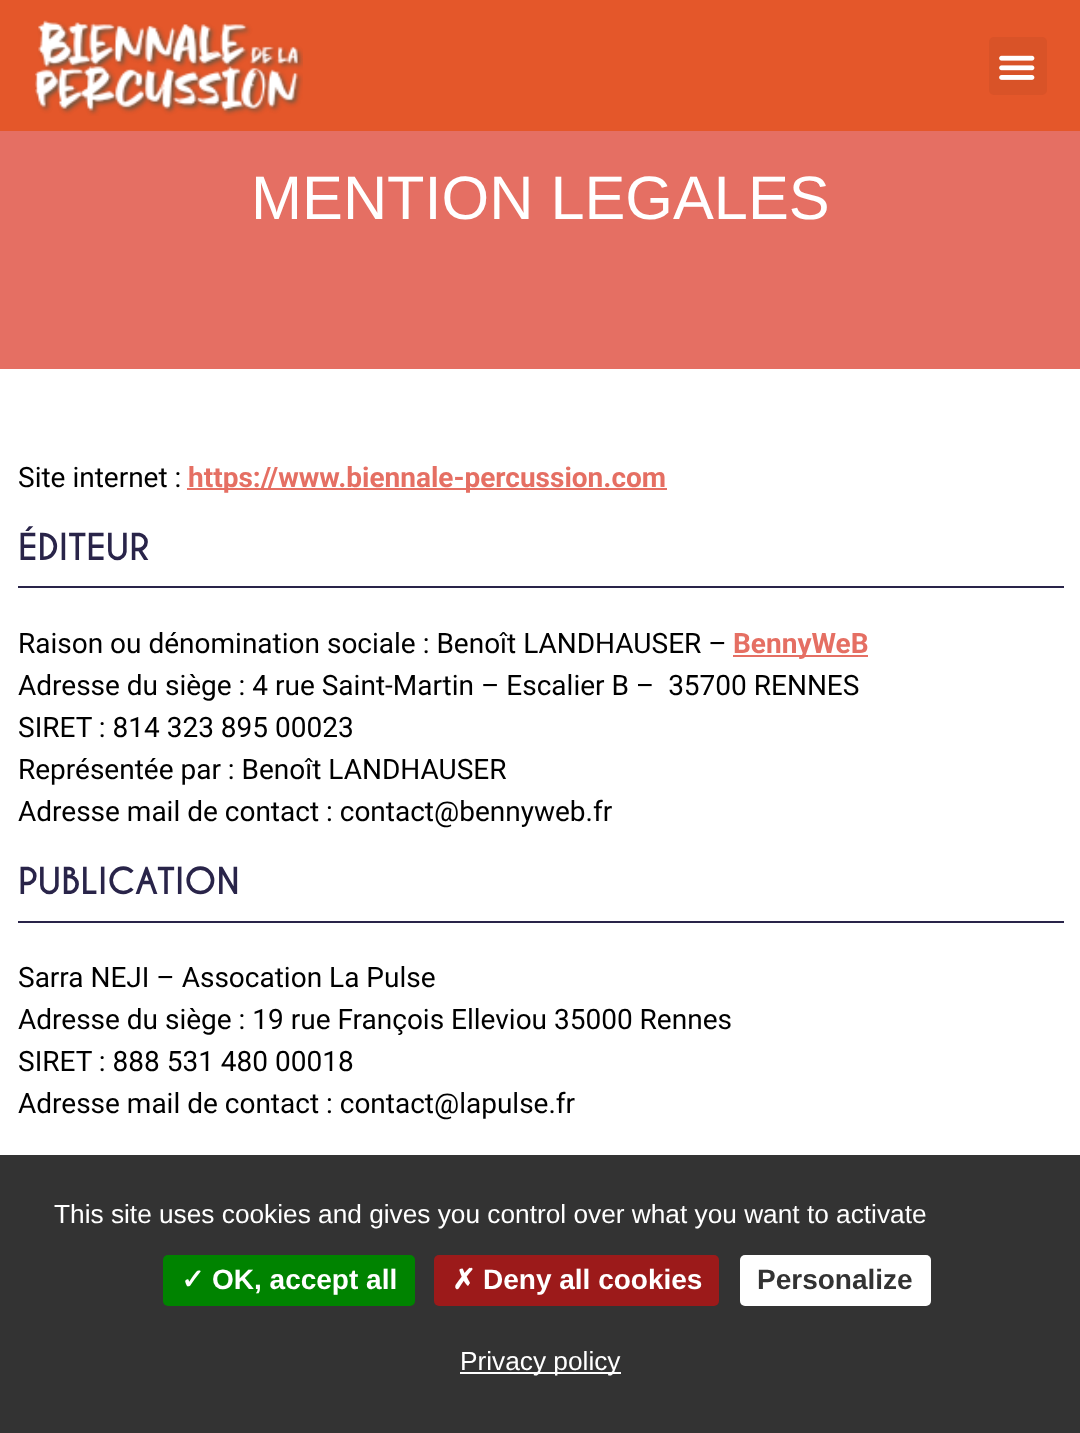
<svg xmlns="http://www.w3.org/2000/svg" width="1080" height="1433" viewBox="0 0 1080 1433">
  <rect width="100%" height="100%" fill="rgb(255,255,255)"/>
  <rect x="0" y="0" width="1080" height="131" fill="rgb(228,87,42)"/>
  <image x="35" y="20" width="268" height="96" href="pic1.png"/>
  <rect x="989" y="37" width="58" height="58" rx="5" fill="rgb(217,83,40)"/>
  <image x="999" y="55" width="36" height="25" href="pic2.png"/>
  <rect x="0" y="131" width="1080" height="238" fill="rgb(229,111,99)"/>
  <text x="251" y="219" font-family="Liberation Sans" font-size="61.25" fill="rgb(255,255,255)">MENTION LEGALES</text>
  <text x="18" y="487" font-family="Roboto" font-size="28" fill="rgb(0,0,0)">Site internet :</text>
  <rect x="187" y="488" width="480" height="2" fill="rgb(229,111,99)"/>
  <text x="188" y="487" font-family="Roboto" font-size="28" font-weight="bold" fill="rgb(229,111,99)">https://www.biennale-percussion.com</text>
  <rect x="18" y="586" width="1046" height="2" fill="rgb(41,36,73)"/>
  <text x="18" y="560" font-family="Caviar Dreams" font-size="35" font-weight="bold" fill="rgb(41,36,73)">ÉDITEUR</text>
  <text x="18" y="653" font-family="Roboto" font-size="28" fill="rgb(0,0,0)">Raison ou dénomination sociale : Benoît LANDHAUSER –</text>
  <rect x="733" y="655" width="135" height="2" fill="rgb(229,111,99)"/>
  <text x="733" y="653" font-family="Roboto" font-size="28" font-weight="bold" fill="rgb(229,111,99)">BennyWeB</text>
  <g font-family="Roboto" font-size="28" fill="rgb(0,0,0)">
    <text xml:space="preserve"><tspan x="18" y="695">Adresse du siège : 4 rue Saint-Martin – Escalier B –  35700 RENNES</tspan><tspan x="18" y="737">SIRET : 814 323 895 00023</tspan><tspan x="18" y="779">Représentée par : Benoît LANDHAUSER</tspan><tspan x="18" y="821">Adresse mail de contact : contact@bennyweb.fr</tspan></text>
  </g>
  <rect x="18" y="921" width="1046" height="2" fill="rgb(41,36,73)"/>
  <text x="18" y="894" font-family="Caviar Dreams" font-size="35" font-weight="bold" fill="rgb(41,36,73)">PUBLICATION</text>
  <g font-family="Roboto" font-size="28" fill="rgb(0,0,0)">
    <text>
      <tspan x="18" y="987">Sarra NEJI – Assocation La Pulse</tspan>
      <tspan x="18" y="1029">Adresse du siège : 19 rue François Elleviou 35000 Rennes</tspan>
      <tspan x="18" y="1071">SIRET : 888 531 480 00018</tspan>
      <tspan x="18" y="1113">Adresse mail de contact : contact@lapulse.fr</tspan>
    </text>
  </g>
  <rect x="0" y="1155" width="1080" height="278" fill="rgb(51,51,51)"/>
  <text x="54" y="1223" font-family="Liberation Sans" font-size="26.25" fill="rgb(255,255,255)">This site uses cookies and gives you control over what you want to activate</text>
  <rect x="163" y="1255" width="252" height="51" rx="5" fill="rgb(0,131,0)"/>
  <text x="181" y="1289" font-family="DejaVu Sans" font-size="28" font-weight="bold" fill="rgb(255,255,255)">✓</text>
  <text x="212" y="1289" font-family="Liberation Sans" font-size="28" font-weight="bold" fill="rgb(255,255,255)">OK, accept all</text>
  <rect x="434" y="1255" width="285" height="51" rx="5" fill="rgb(156,26,26)"/>
  <text x="452" y="1289" font-family="DejaVu Sans" font-size="28" font-weight="bold" fill="rgb(255,255,255)">✗</text>
  <text x="483" y="1289" font-family="Liberation Sans" font-size="28" font-weight="bold" fill="rgb(255,255,255)">Deny all cookies</text>
  <rect x="740" y="1255" width="191" height="51" rx="5" fill="rgb(255,255,255)"/>
  <text x="757" y="1289" font-family="Liberation Sans" font-size="28" font-weight="bold" fill="rgb(51,51,51)">Personalize</text>
  <rect x="460" y="1372" width="161" height="2" fill="rgb(255,255,255)"/>
  <text x="460" y="1370" font-family="Liberation Sans" font-size="26.25" fill="rgb(255,255,255)">Privacy policy</text>
</svg>
